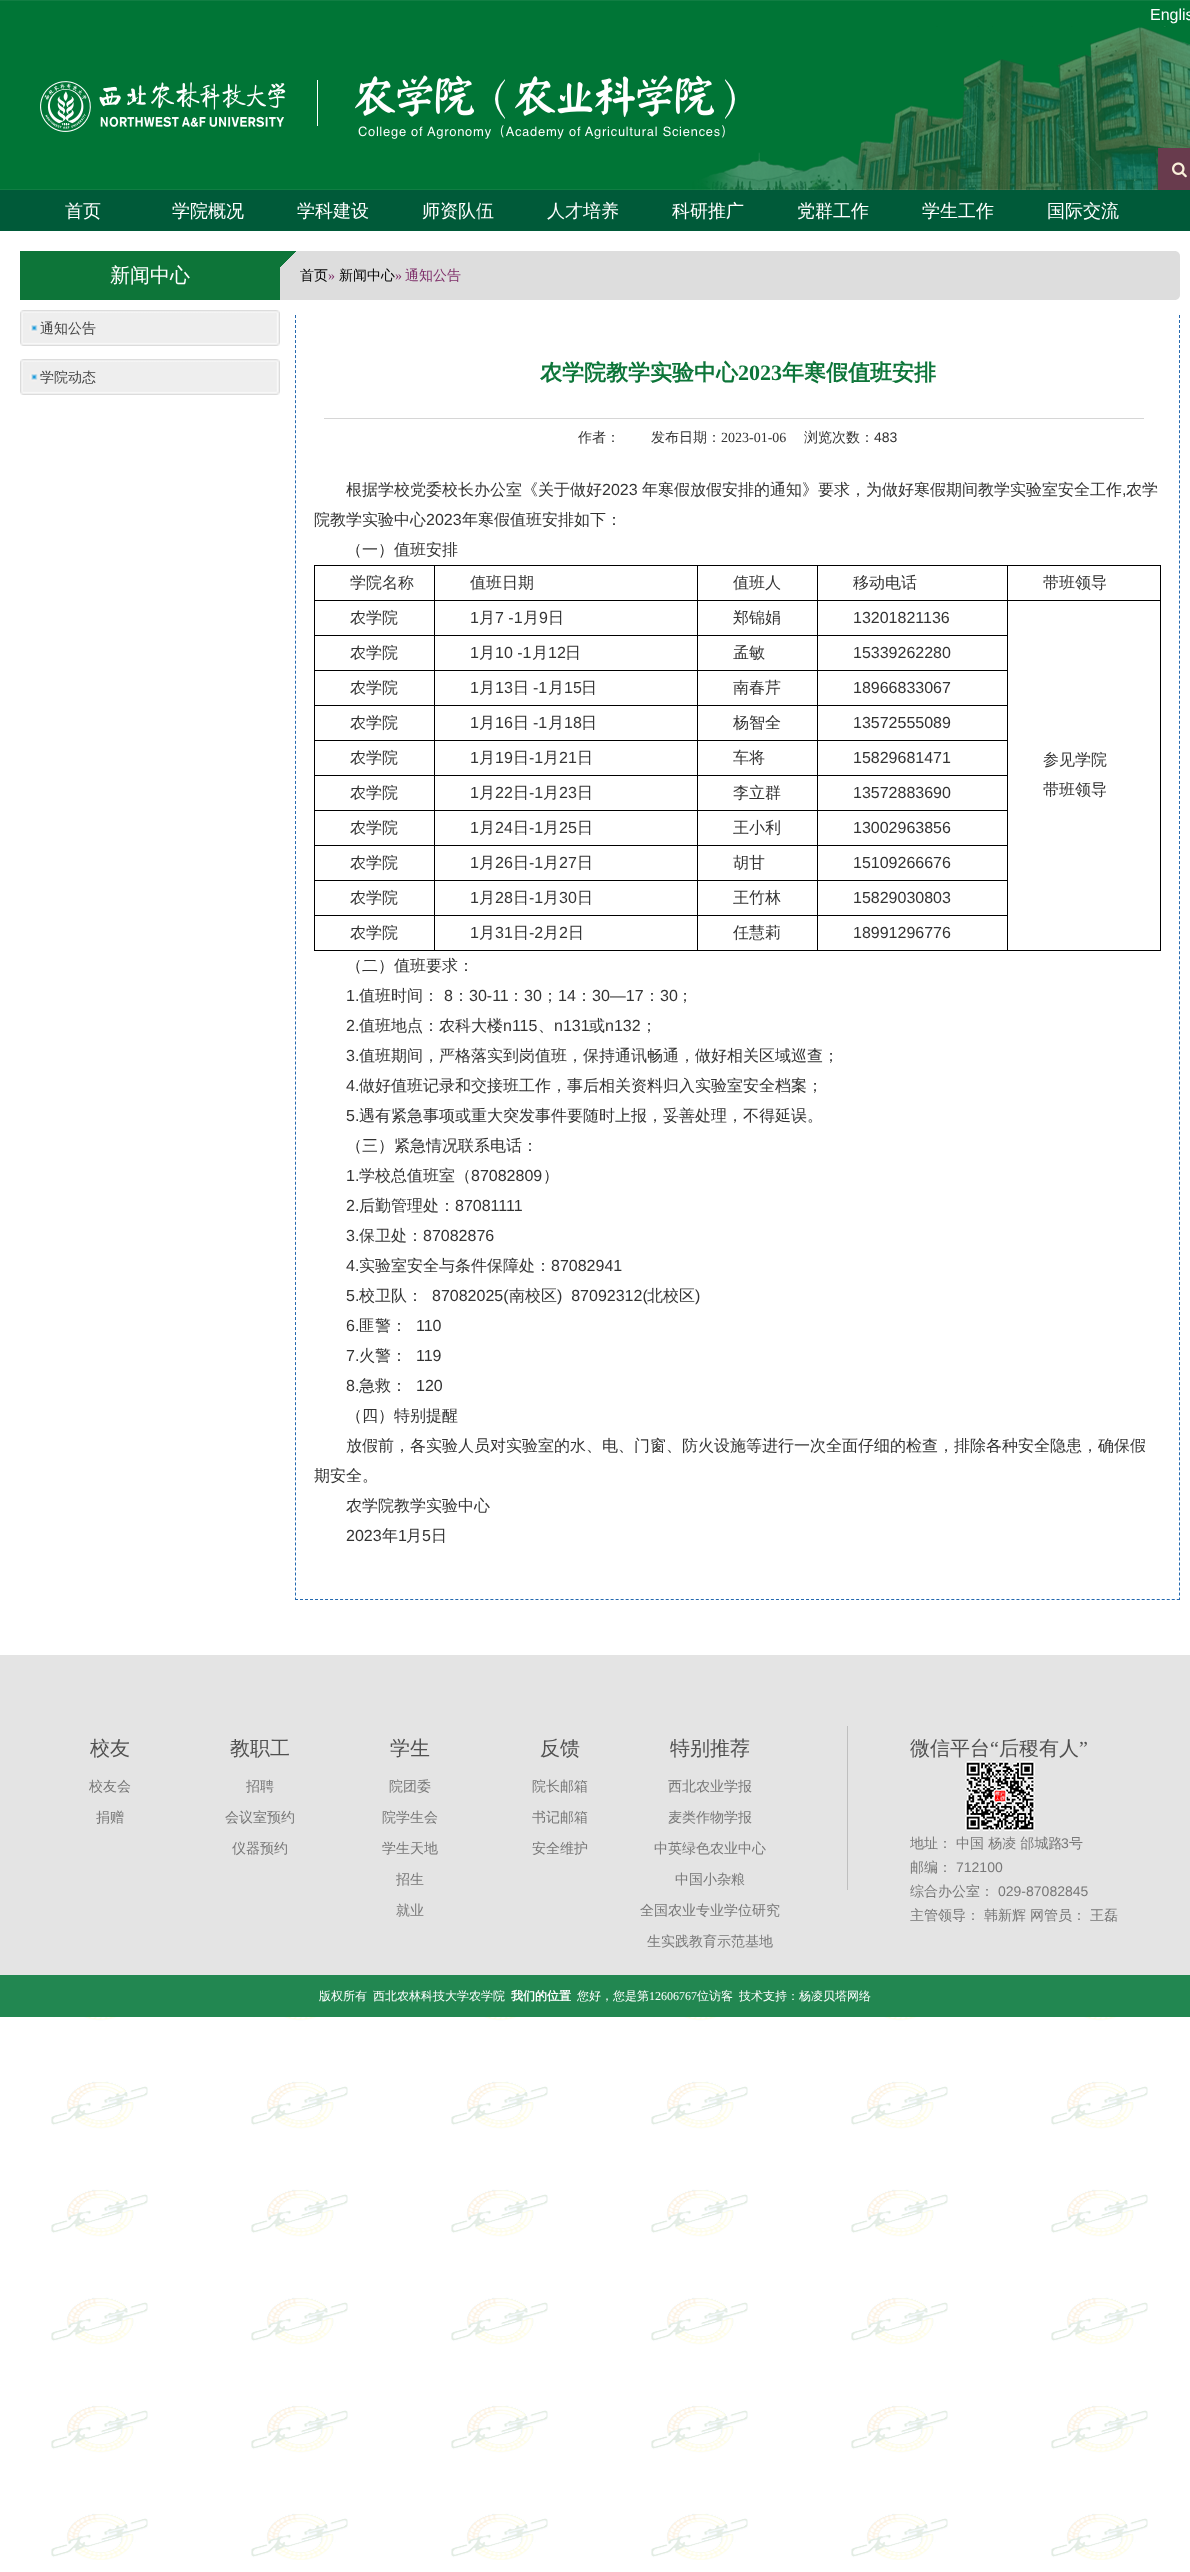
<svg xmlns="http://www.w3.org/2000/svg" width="1190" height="2572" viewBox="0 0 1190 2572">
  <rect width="100%" height="100%" fill="rgb(255,255,255)"/>
  <image x="51" y="189" width="1097" height="2371" href="pic1.png"/>
  <image x="0" y="0" width="1190" height="190" href="pic2.png"/>
  <text x="1150" y="20" font-family="Liberation Sans" font-size="16" fill="rgb(255,255,255)">Englis</text>
  <rect x="1158" y="148" width="32" height="42" fill="rgb(104,59,77)"/>
  <image x="1172" y="162" width="15" height="16" href="pic3.png"/>
  <image x="40" y="75" width="695" height="64" href="pic4.png"/>
  <rect x="0" y="190" width="1190" height="41" fill="rgb(0,90,57)"/>
  <g font-family="WenQuanYi Zen Hei" font-size="18" font-weight="500" fill="rgb(255,255,255)">
    <text x="65" y="217">首页</text>
    <text x="172" y="217">学院概况</text>
    <text x="297" y="217">学科建设</text>
    <text x="422" y="217">师资队伍</text>
    <text x="547" y="217">人才培养</text>
    <text x="672" y="217">科研推广</text>
    <text x="797" y="217">党群工作</text>
    <text x="922" y="217">学生工作</text>
    <text x="1047" y="217">国际交流</text>
  </g>
  <rect x="51" y="245" width="1097" height="1410" fill="rgb(255,255,255)"/>
  <rect x="280" y="251" width="896" height="49" fill="rgb(221,221,221)"/>
  <rect x="20" y="251" width="260" height="49" fill="rgb(13,117,57)"/>
  <text x="110" y="282" font-family="WenQuanYi Zen Hei" font-size="20" font-weight="500" fill="rgb(255,255,255)">新闻中心</text>
  <image x="280" y="251" width="16" height="16" href="pic5.png"/>
  <text x="300" y="280" font-family="WenQuanYi Zen Hei" font-size="14" font-weight="500" fill="rgb(0,0,0)">首页</text>
  <text x="328" y="280" font-family="Liberation Serif" font-size="14" fill="rgb(127,48,106)">»</text>
  <text x="339" y="280" font-family="WenQuanYi Zen Hei" font-size="14" font-weight="500" fill="rgb(0,0,0)">新闻中心</text>
  <text x="395" y="280" font-family="Liberation Serif" font-size="14" fill="rgb(127,48,106)">»</text>
  <text x="405" y="280" font-family="WenQuanYi Zen Hei" font-size="14" font-weight="500" fill="rgb(127,48,106)">通知公告</text>
  <image x="1176" y="251" width="4" height="49" href="pic6.png"/>
  <image x="20" y="310" width="260" height="36" href="pic7.png"/>
  <text x="40" y="333" font-family="WenQuanYi Zen Hei" font-size="14" font-weight="500" fill="rgb(68,68,68)">通知公告</text>
  <image x="20" y="359" width="260" height="36" href="pic7.png"/>
  <text x="40" y="382" font-family="WenQuanYi Zen Hei" font-size="14" font-weight="500" fill="rgb(68,68,68)">学院动态</text>
  <path d="M1179.5 315V1600" fill="none" stroke="rgb(37,105,175)" stroke-dasharray="3 2.01"/>
  <path d="M295 1599.5H1180" fill="none" stroke="rgb(37,105,175)" stroke-dasharray="3 2.01"/>
  <path d="M295.5 315V1600" fill="none" stroke="rgb(37,105,175)" stroke-dasharray="3 2.01"/>
  <text x="540" y="380" font-family="WenQuanYi Zen Hei" font-size="22" font-weight="bold" fill="rgb(13,117,57)">农学院教学实验中心</text>
  <text x="738" y="380" font-family="Liberation Serif" font-size="22" font-weight="bold" fill="rgb(13,117,57)">2023</text>
  <text x="782" y="380" font-family="WenQuanYi Zen Hei" font-size="22" font-weight="bold" fill="rgb(13,117,57)">年寒假值班安排</text>
  <rect x="324" y="418" width="820" height="1" fill="rgb(214,214,214)"/>
  <g font-family="WenQuanYi Zen Hei" font-size="14" font-weight="500" fill="rgb(51,51,51)">
    <text x="578" y="442">作者：</text>
    <text x="651" y="442">发布日期：</text>
  </g>
  <text x="721" y="442" font-family="Liberation Serif" font-size="14" fill="rgb(51,51,51)">2023-01-06</text>
  <text x="804" y="442" font-family="WenQuanYi Zen Hei" font-size="14" font-weight="500" fill="rgb(51,51,51)">浏览次数：</text>
  <text x="874" y="442" font-family="Liberation Sans" font-size="14" fill="rgb(51,51,51)">483</text>
  <text x="346" y="495" font-family="WenQuanYi Zen Hei" font-size="16" font-weight="500" fill="rgb(51,51,51)">根据学校党委校长办公室《关于做好</text>
  <text x="602" y="495" font-family="Liberation Sans" font-size="16" fill="rgb(51,51,51)">2023</text>
  <text x="642" y="495" font-family="WenQuanYi Zen Hei" font-size="16" font-weight="500" fill="rgb(51,51,51)">年寒假放假安排的通知》要求，为做好寒假期间教学实验室安全工作</text>
  <text x="1122" y="495" font-family="Liberation Sans" font-size="16" fill="rgb(51,51,51)">,</text>
  <g font-family="WenQuanYi Zen Hei" font-size="16" font-weight="500" fill="rgb(51,51,51)">
    <text x="1126" y="495">农学</text>
    <text x="314" y="525">院教学实验中心</text>
  </g>
  <text x="426" y="525" font-family="Liberation Sans" font-size="16" fill="rgb(51,51,51)">2023</text>
  <g font-family="WenQuanYi Zen Hei" font-size="16" font-weight="500" fill="rgb(51,51,51)">
    <text x="462" y="525">年寒假值班安排如下：</text>
    <text x="346" y="555">（一）值班安排</text>
  </g>
  <rect x="1007" y="565" width="154" height="1" fill="rgb(0,0,0)"/>
  <rect x="1007" y="600" width="154" height="1" fill="rgb(0,0,0)"/>
  <rect x="1160" y="600" width="1" height="351" fill="rgb(0,0,0)"/>
  <rect x="817" y="950" width="191" height="1" fill="rgb(0,0,0)"/>
  <rect x="1007" y="950" width="154" height="1" fill="rgb(0,0,0)"/>
  <rect x="817" y="635" width="191" height="1" fill="rgb(0,0,0)"/>
  <rect x="817" y="670" width="191" height="1" fill="rgb(0,0,0)"/>
  <rect x="817" y="705" width="191" height="1" fill="rgb(0,0,0)"/>
  <rect x="817" y="740" width="191" height="1" fill="rgb(0,0,0)"/>
  <rect x="817" y="775" width="191" height="1" fill="rgb(0,0,0)"/>
  <rect x="817" y="810" width="191" height="1" fill="rgb(0,0,0)"/>
  <rect x="817" y="845" width="191" height="1" fill="rgb(0,0,0)"/>
  <rect x="817" y="880" width="191" height="1" fill="rgb(0,0,0)"/>
  <rect x="817" y="915" width="191" height="1" fill="rgb(0,0,0)"/>
  <rect x="1007" y="600" width="1" height="351" fill="rgb(0,0,0)"/>
  <rect x="817" y="600" width="191" height="1" fill="rgb(0,0,0)"/>
  <rect x="1007" y="565" width="1" height="36" fill="rgb(0,0,0)"/>
  <rect x="817" y="565" width="191" height="1" fill="rgb(0,0,0)"/>
  <rect x="817" y="915" width="1" height="36" fill="rgb(0,0,0)"/>
  <rect x="697" y="915" width="121" height="1" fill="rgb(0,0,0)"/>
  <rect x="817" y="880" width="1" height="36" fill="rgb(0,0,0)"/>
  <rect x="697" y="880" width="121" height="1" fill="rgb(0,0,0)"/>
  <rect x="817" y="845" width="1" height="36" fill="rgb(0,0,0)"/>
  <rect x="697" y="845" width="121" height="1" fill="rgb(0,0,0)"/>
  <rect x="817" y="810" width="1" height="36" fill="rgb(0,0,0)"/>
  <rect x="697" y="810" width="121" height="1" fill="rgb(0,0,0)"/>
  <rect x="817" y="775" width="1" height="36" fill="rgb(0,0,0)"/>
  <rect x="697" y="775" width="121" height="1" fill="rgb(0,0,0)"/>
  <rect x="817" y="740" width="1" height="36" fill="rgb(0,0,0)"/>
  <rect x="697" y="740" width="121" height="1" fill="rgb(0,0,0)"/>
  <rect x="817" y="705" width="1" height="36" fill="rgb(0,0,0)"/>
  <rect x="697" y="705" width="121" height="1" fill="rgb(0,0,0)"/>
  <rect x="817" y="670" width="1" height="36" fill="rgb(0,0,0)"/>
  <rect x="697" y="670" width="121" height="1" fill="rgb(0,0,0)"/>
  <rect x="817" y="635" width="1" height="36" fill="rgb(0,0,0)"/>
  <rect x="697" y="635" width="121" height="1" fill="rgb(0,0,0)"/>
  <rect x="817" y="600" width="1" height="36" fill="rgb(0,0,0)"/>
  <rect x="697" y="600" width="121" height="1" fill="rgb(0,0,0)"/>
  <rect x="817" y="565" width="1" height="36" fill="rgb(0,0,0)"/>
  <rect x="697" y="565" width="121" height="1" fill="rgb(0,0,0)"/>
  <rect x="697" y="950" width="121" height="1" fill="rgb(0,0,0)"/>
  <rect x="697" y="915" width="1" height="36" fill="rgb(0,0,0)"/>
  <rect x="434" y="915" width="264" height="1" fill="rgb(0,0,0)"/>
  <rect x="697" y="880" width="1" height="36" fill="rgb(0,0,0)"/>
  <rect x="434" y="880" width="264" height="1" fill="rgb(0,0,0)"/>
  <rect x="697" y="845" width="1" height="36" fill="rgb(0,0,0)"/>
  <rect x="434" y="845" width="264" height="1" fill="rgb(0,0,0)"/>
  <rect x="697" y="810" width="1" height="36" fill="rgb(0,0,0)"/>
  <rect x="434" y="810" width="264" height="1" fill="rgb(0,0,0)"/>
  <rect x="697" y="775" width="1" height="36" fill="rgb(0,0,0)"/>
  <rect x="434" y="775" width="264" height="1" fill="rgb(0,0,0)"/>
  <rect x="697" y="740" width="1" height="36" fill="rgb(0,0,0)"/>
  <rect x="434" y="740" width="264" height="1" fill="rgb(0,0,0)"/>
  <rect x="697" y="705" width="1" height="36" fill="rgb(0,0,0)"/>
  <rect x="434" y="705" width="264" height="1" fill="rgb(0,0,0)"/>
  <rect x="697" y="670" width="1" height="36" fill="rgb(0,0,0)"/>
  <rect x="434" y="670" width="264" height="1" fill="rgb(0,0,0)"/>
  <rect x="697" y="635" width="1" height="36" fill="rgb(0,0,0)"/>
  <rect x="434" y="635" width="264" height="1" fill="rgb(0,0,0)"/>
  <rect x="697" y="600" width="1" height="36" fill="rgb(0,0,0)"/>
  <rect x="434" y="600" width="264" height="1" fill="rgb(0,0,0)"/>
  <rect x="697" y="565" width="1" height="36" fill="rgb(0,0,0)"/>
  <rect x="434" y="565" width="264" height="1" fill="rgb(0,0,0)"/>
  <rect x="434" y="950" width="264" height="1" fill="rgb(0,0,0)"/>
  <rect x="434" y="915" width="1" height="36" fill="rgb(0,0,0)"/>
  <rect x="314" y="915" width="121" height="1" fill="rgb(0,0,0)"/>
  <rect x="434" y="880" width="1" height="36" fill="rgb(0,0,0)"/>
  <rect x="314" y="880" width="121" height="1" fill="rgb(0,0,0)"/>
  <rect x="434" y="845" width="1" height="36" fill="rgb(0,0,0)"/>
  <rect x="314" y="845" width="121" height="1" fill="rgb(0,0,0)"/>
  <rect x="434" y="810" width="1" height="36" fill="rgb(0,0,0)"/>
  <rect x="314" y="810" width="121" height="1" fill="rgb(0,0,0)"/>
  <rect x="434" y="775" width="1" height="36" fill="rgb(0,0,0)"/>
  <rect x="314" y="775" width="121" height="1" fill="rgb(0,0,0)"/>
  <rect x="434" y="740" width="1" height="36" fill="rgb(0,0,0)"/>
  <rect x="314" y="740" width="121" height="1" fill="rgb(0,0,0)"/>
  <rect x="434" y="705" width="1" height="36" fill="rgb(0,0,0)"/>
  <rect x="314" y="705" width="121" height="1" fill="rgb(0,0,0)"/>
  <rect x="434" y="670" width="1" height="36" fill="rgb(0,0,0)"/>
  <rect x="314" y="670" width="121" height="1" fill="rgb(0,0,0)"/>
  <rect x="434" y="635" width="1" height="36" fill="rgb(0,0,0)"/>
  <rect x="314" y="635" width="121" height="1" fill="rgb(0,0,0)"/>
  <rect x="434" y="600" width="1" height="36" fill="rgb(0,0,0)"/>
  <rect x="314" y="600" width="121" height="1" fill="rgb(0,0,0)"/>
  <rect x="434" y="565" width="1" height="36" fill="rgb(0,0,0)"/>
  <rect x="314" y="565" width="121" height="1" fill="rgb(0,0,0)"/>
  <rect x="314" y="950" width="121" height="1" fill="rgb(0,0,0)"/>
  <rect x="314" y="915" width="1" height="36" fill="rgb(0,0,0)"/>
  <rect x="314" y="880" width="1" height="36" fill="rgb(0,0,0)"/>
  <rect x="314" y="845" width="1" height="36" fill="rgb(0,0,0)"/>
  <rect x="314" y="810" width="1" height="36" fill="rgb(0,0,0)"/>
  <rect x="314" y="775" width="1" height="36" fill="rgb(0,0,0)"/>
  <rect x="314" y="740" width="1" height="36" fill="rgb(0,0,0)"/>
  <rect x="314" y="705" width="1" height="36" fill="rgb(0,0,0)"/>
  <rect x="314" y="670" width="1" height="36" fill="rgb(0,0,0)"/>
  <rect x="314" y="635" width="1" height="36" fill="rgb(0,0,0)"/>
  <rect x="314" y="600" width="1" height="36" fill="rgb(0,0,0)"/>
  <rect x="314" y="565" width="1" height="36" fill="rgb(0,0,0)"/>
  <g font-family="WenQuanYi Zen Hei" font-size="16" font-weight="500" fill="rgb(51,51,51)">
    <text x="350" y="588">学院名称</text>
    <text x="470" y="588">值班日期</text>
    <text x="733" y="588">值班人</text>
    <text x="853" y="588">移动电话</text>
  </g>
  <rect x="1160" y="565" width="1" height="36" fill="rgb(0,0,0)"/>
  <g font-family="WenQuanYi Zen Hei" font-size="16" font-weight="500" fill="rgb(51,51,51)">
    <text x="1043" y="588">带班领导</text>
    <text x="350" y="623">农学院</text>
  </g>
  <text x="470" y="623" font-family="Liberation Sans" font-size="16" fill="rgb(51,51,51)">1</text>
  <text x="479" y="623" font-family="WenQuanYi Zen Hei" font-size="16" font-weight="500" fill="rgb(51,51,51)">月</text>
  <text x="495" y="623" font-family="Liberation Sans" font-size="16" fill="rgb(51,51,51)">7 -1</text>
  <text x="523" y="623" font-family="WenQuanYi Zen Hei" font-size="16" font-weight="500" fill="rgb(51,51,51)">月</text>
  <text x="539" y="623" font-family="Liberation Sans" font-size="16" fill="rgb(51,51,51)">9</text>
  <g font-family="WenQuanYi Zen Hei" font-size="16" font-weight="500" fill="rgb(51,51,51)">
    <text x="548" y="623">日</text>
    <text x="733" y="623">郑锦娟</text>
  </g>
  <text x="853" y="623" font-family="Liberation Sans" font-size="16" fill="rgb(51,51,51)">13201821136</text>
  <g font-family="WenQuanYi Zen Hei" font-size="16" font-weight="500" fill="rgb(51,51,51)">
    <text>
      <tspan x="1043" y="765">参见学院</tspan>
      <tspan x="1043" y="795">带班领导</tspan>
    </text>
    <text x="350" y="658">农学院</text>
  </g>
  <text x="470" y="658" font-family="Liberation Sans" font-size="16" fill="rgb(51,51,51)">1</text>
  <text x="479" y="658" font-family="WenQuanYi Zen Hei" font-size="16" font-weight="500" fill="rgb(51,51,51)">月</text>
  <text x="495" y="658" font-family="Liberation Sans" font-size="16" fill="rgb(51,51,51)">10 -1</text>
  <text x="532" y="658" font-family="WenQuanYi Zen Hei" font-size="16" font-weight="500" fill="rgb(51,51,51)">月</text>
  <text x="548" y="658" font-family="Liberation Sans" font-size="16" fill="rgb(51,51,51)">12</text>
  <g font-family="WenQuanYi Zen Hei" font-size="16" font-weight="500" fill="rgb(51,51,51)">
    <text x="565" y="658">日</text>
    <text x="733" y="658">孟敏</text>
  </g>
  <text x="853" y="658" font-family="Liberation Sans" font-size="16" fill="rgb(51,51,51)">15339262280</text>
  <text x="350" y="693" font-family="WenQuanYi Zen Hei" font-size="16" font-weight="500" fill="rgb(51,51,51)">农学院</text>
  <text x="470" y="693" font-family="Liberation Sans" font-size="16" fill="rgb(51,51,51)">1</text>
  <text x="479" y="693" font-family="WenQuanYi Zen Hei" font-size="16" font-weight="500" fill="rgb(51,51,51)">月</text>
  <text x="495" y="693" font-family="Liberation Sans" font-size="16" fill="rgb(51,51,51)">13</text>
  <text x="513" y="693" font-family="WenQuanYi Zen Hei" font-size="16" font-weight="500" fill="rgb(51,51,51)">日</text>
  <text x="533" y="693" font-family="Liberation Sans" font-size="16" fill="rgb(51,51,51)">-1</text>
  <text x="548" y="693" font-family="WenQuanYi Zen Hei" font-size="16" font-weight="500" fill="rgb(51,51,51)">月</text>
  <text x="564" y="693" font-family="Liberation Sans" font-size="16" fill="rgb(51,51,51)">15</text>
  <g font-family="WenQuanYi Zen Hei" font-size="16" font-weight="500" fill="rgb(51,51,51)">
    <text x="581" y="693">日</text>
    <text x="733" y="693">南春芹</text>
  </g>
  <text x="853" y="693" font-family="Liberation Sans" font-size="16" fill="rgb(51,51,51)">18966833067</text>
  <text x="350" y="728" font-family="WenQuanYi Zen Hei" font-size="16" font-weight="500" fill="rgb(51,51,51)">农学院</text>
  <text x="470" y="728" font-family="Liberation Sans" font-size="16" fill="rgb(51,51,51)">1</text>
  <text x="479" y="728" font-family="WenQuanYi Zen Hei" font-size="16" font-weight="500" fill="rgb(51,51,51)">月</text>
  <text x="495" y="728" font-family="Liberation Sans" font-size="16" fill="rgb(51,51,51)">16</text>
  <text x="513" y="728" font-family="WenQuanYi Zen Hei" font-size="16" font-weight="500" fill="rgb(51,51,51)">日</text>
  <text x="533" y="728" font-family="Liberation Sans" font-size="16" fill="rgb(51,51,51)">-1</text>
  <text x="548" y="728" font-family="WenQuanYi Zen Hei" font-size="16" font-weight="500" fill="rgb(51,51,51)">月</text>
  <text x="564" y="728" font-family="Liberation Sans" font-size="16" fill="rgb(51,51,51)">18</text>
  <g font-family="WenQuanYi Zen Hei" font-size="16" font-weight="500" fill="rgb(51,51,51)">
    <text x="581" y="728">日</text>
    <text x="733" y="728">杨智全</text>
  </g>
  <text x="853" y="728" font-family="Liberation Sans" font-size="16" fill="rgb(51,51,51)">13572555089</text>
  <text x="350" y="763" font-family="WenQuanYi Zen Hei" font-size="16" font-weight="500" fill="rgb(51,51,51)">农学院</text>
  <text x="470" y="763" font-family="Liberation Sans" font-size="16" fill="rgb(51,51,51)">1</text>
  <text x="479" y="763" font-family="WenQuanYi Zen Hei" font-size="16" font-weight="500" fill="rgb(51,51,51)">月</text>
  <text x="495" y="763" font-family="Liberation Sans" font-size="16" fill="rgb(51,51,51)">19</text>
  <text x="513" y="763" font-family="WenQuanYi Zen Hei" font-size="16" font-weight="500" fill="rgb(51,51,51)">日</text>
  <text x="529" y="763" font-family="Liberation Sans" font-size="16" fill="rgb(51,51,51)">-1</text>
  <text x="543" y="763" font-family="WenQuanYi Zen Hei" font-size="16" font-weight="500" fill="rgb(51,51,51)">月</text>
  <text x="559" y="763" font-family="Liberation Sans" font-size="16" fill="rgb(51,51,51)">21</text>
  <g font-family="WenQuanYi Zen Hei" font-size="16" font-weight="500" fill="rgb(51,51,51)">
    <text x="577" y="763">日</text>
    <text x="733" y="763">车将</text>
  </g>
  <text x="853" y="763" font-family="Liberation Sans" font-size="16" fill="rgb(51,51,51)">15829681471</text>
  <text x="350" y="798" font-family="WenQuanYi Zen Hei" font-size="16" font-weight="500" fill="rgb(51,51,51)">农学院</text>
  <text x="470" y="798" font-family="Liberation Sans" font-size="16" fill="rgb(51,51,51)">1</text>
  <text x="479" y="798" font-family="WenQuanYi Zen Hei" font-size="16" font-weight="500" fill="rgb(51,51,51)">月</text>
  <text x="495" y="798" font-family="Liberation Sans" font-size="16" fill="rgb(51,51,51)">22</text>
  <text x="513" y="798" font-family="WenQuanYi Zen Hei" font-size="16" font-weight="500" fill="rgb(51,51,51)">日</text>
  <text x="529" y="798" font-family="Liberation Sans" font-size="16" fill="rgb(51,51,51)">-1</text>
  <text x="543" y="798" font-family="WenQuanYi Zen Hei" font-size="16" font-weight="500" fill="rgb(51,51,51)">月</text>
  <text x="559" y="798" font-family="Liberation Sans" font-size="16" fill="rgb(51,51,51)">23</text>
  <g font-family="WenQuanYi Zen Hei" font-size="16" font-weight="500" fill="rgb(51,51,51)">
    <text x="577" y="798">日</text>
    <text x="733" y="798">李立群</text>
  </g>
  <text x="853" y="798" font-family="Liberation Sans" font-size="16" fill="rgb(51,51,51)">13572883690</text>
  <text x="350" y="833" font-family="WenQuanYi Zen Hei" font-size="16" font-weight="500" fill="rgb(51,51,51)">农学院</text>
  <text x="470" y="833" font-family="Liberation Sans" font-size="16" fill="rgb(51,51,51)">1</text>
  <text x="479" y="833" font-family="WenQuanYi Zen Hei" font-size="16" font-weight="500" fill="rgb(51,51,51)">月</text>
  <text x="495" y="833" font-family="Liberation Sans" font-size="16" fill="rgb(51,51,51)">24</text>
  <text x="513" y="833" font-family="WenQuanYi Zen Hei" font-size="16" font-weight="500" fill="rgb(51,51,51)">日</text>
  <text x="529" y="833" font-family="Liberation Sans" font-size="16" fill="rgb(51,51,51)">-1</text>
  <text x="543" y="833" font-family="WenQuanYi Zen Hei" font-size="16" font-weight="500" fill="rgb(51,51,51)">月</text>
  <text x="559" y="833" font-family="Liberation Sans" font-size="16" fill="rgb(51,51,51)">25</text>
  <g font-family="WenQuanYi Zen Hei" font-size="16" font-weight="500" fill="rgb(51,51,51)">
    <text x="577" y="833">日</text>
    <text x="733" y="833">王小利</text>
  </g>
  <text x="853" y="833" font-family="Liberation Sans" font-size="16" fill="rgb(51,51,51)">13002963856</text>
  <text x="350" y="868" font-family="WenQuanYi Zen Hei" font-size="16" font-weight="500" fill="rgb(51,51,51)">农学院</text>
  <text x="470" y="868" font-family="Liberation Sans" font-size="16" fill="rgb(51,51,51)">1</text>
  <text x="479" y="868" font-family="WenQuanYi Zen Hei" font-size="16" font-weight="500" fill="rgb(51,51,51)">月</text>
  <text x="495" y="868" font-family="Liberation Sans" font-size="16" fill="rgb(51,51,51)">26</text>
  <text x="513" y="868" font-family="WenQuanYi Zen Hei" font-size="16" font-weight="500" fill="rgb(51,51,51)">日</text>
  <text x="529" y="868" font-family="Liberation Sans" font-size="16" fill="rgb(51,51,51)">-1</text>
  <text x="543" y="868" font-family="WenQuanYi Zen Hei" font-size="16" font-weight="500" fill="rgb(51,51,51)">月</text>
  <text x="559" y="868" font-family="Liberation Sans" font-size="16" fill="rgb(51,51,51)">27</text>
  <g font-family="WenQuanYi Zen Hei" font-size="16" font-weight="500" fill="rgb(51,51,51)">
    <text x="577" y="868">日</text>
    <text x="733" y="868">胡甘</text>
  </g>
  <text x="853" y="868" font-family="Liberation Sans" font-size="16" fill="rgb(51,51,51)">15109266676</text>
  <text x="350" y="903" font-family="WenQuanYi Zen Hei" font-size="16" font-weight="500" fill="rgb(51,51,51)">农学院</text>
  <text x="470" y="903" font-family="Liberation Sans" font-size="16" fill="rgb(51,51,51)">1</text>
  <text x="479" y="903" font-family="WenQuanYi Zen Hei" font-size="16" font-weight="500" fill="rgb(51,51,51)">月</text>
  <text x="495" y="903" font-family="Liberation Sans" font-size="16" fill="rgb(51,51,51)">28</text>
  <text x="513" y="903" font-family="WenQuanYi Zen Hei" font-size="16" font-weight="500" fill="rgb(51,51,51)">日</text>
  <text x="529" y="903" font-family="Liberation Sans" font-size="16" fill="rgb(51,51,51)">-1</text>
  <text x="543" y="903" font-family="WenQuanYi Zen Hei" font-size="16" font-weight="500" fill="rgb(51,51,51)">月</text>
  <text x="559" y="903" font-family="Liberation Sans" font-size="16" fill="rgb(51,51,51)">30</text>
  <g font-family="WenQuanYi Zen Hei" font-size="16" font-weight="500" fill="rgb(51,51,51)">
    <text x="577" y="903">日</text>
    <text x="733" y="903">王竹林</text>
  </g>
  <text x="853" y="903" font-family="Liberation Sans" font-size="16" fill="rgb(51,51,51)">15829030803</text>
  <text x="350" y="938" font-family="WenQuanYi Zen Hei" font-size="16" font-weight="500" fill="rgb(51,51,51)">农学院</text>
  <text x="470" y="938" font-family="Liberation Sans" font-size="16" fill="rgb(51,51,51)">1</text>
  <text x="479" y="938" font-family="WenQuanYi Zen Hei" font-size="16" font-weight="500" fill="rgb(51,51,51)">月</text>
  <text x="495" y="938" font-family="Liberation Sans" font-size="16" fill="rgb(51,51,51)">31</text>
  <text x="513" y="938" font-family="WenQuanYi Zen Hei" font-size="16" font-weight="500" fill="rgb(51,51,51)">日</text>
  <text x="529" y="938" font-family="Liberation Sans" font-size="16" fill="rgb(51,51,51)">-2</text>
  <text x="543" y="938" font-family="WenQuanYi Zen Hei" font-size="16" font-weight="500" fill="rgb(51,51,51)">月</text>
  <text x="559" y="938" font-family="Liberation Sans" font-size="16" fill="rgb(51,51,51)">2</text>
  <g font-family="WenQuanYi Zen Hei" font-size="16" font-weight="500" fill="rgb(51,51,51)">
    <text x="568" y="938">日</text>
    <text x="733" y="938">任慧莉</text>
  </g>
  <text x="853" y="938" font-family="Liberation Sans" font-size="16" fill="rgb(51,51,51)">18991296776</text>
  <text x="346" y="971" font-family="WenQuanYi Zen Hei" font-size="16" font-weight="500" fill="rgb(51,51,51)">（二）值班要求：</text>
  <text x="346" y="1001" font-family="Liberation Sans" font-size="16" fill="rgb(51,51,51)">1.</text>
  <text x="359" y="1001" font-family="WenQuanYi Zen Hei" font-size="16" font-weight="500" fill="rgb(51,51,51)">值班时间：</text>
  <text x="444" y="1001" font-family="Liberation Sans" font-size="16" fill="rgb(51,51,51)">8</text>
  <text x="453" y="1001" font-family="WenQuanYi Zen Hei" font-size="16" font-weight="500" fill="rgb(51,51,51)">：</text>
  <text x="469" y="1001" font-family="Liberation Sans" font-size="16" fill="rgb(51,51,51)">30-11</text>
  <text x="508" y="1001" font-family="WenQuanYi Zen Hei" font-size="16" font-weight="500" fill="rgb(51,51,51)">：</text>
  <text x="524" y="1001" font-family="Liberation Sans" font-size="16" fill="rgb(51,51,51)">30</text>
  <text x="542" y="1001" font-family="WenQuanYi Zen Hei" font-size="16" font-weight="500" fill="rgb(51,51,51)">；</text>
  <text x="558" y="1001" font-family="Liberation Sans" font-size="16" fill="rgb(51,51,51)">14</text>
  <text x="576" y="1001" font-family="WenQuanYi Zen Hei" font-size="16" font-weight="500" fill="rgb(51,51,51)">：</text>
  <text x="592" y="1001" font-family="Liberation Sans" font-size="16" fill="rgb(51,51,51)">30—17</text>
  <text x="644" y="1001" font-family="WenQuanYi Zen Hei" font-size="16" font-weight="500" fill="rgb(51,51,51)">：</text>
  <text x="660" y="1001" font-family="Liberation Sans" font-size="16" fill="rgb(51,51,51)">30</text>
  <text x="677" y="1001" font-family="WenQuanYi Zen Hei" font-size="16" font-weight="500" fill="rgb(51,51,51)">；</text>
  <text x="346" y="1031" font-family="Liberation Sans" font-size="16" fill="rgb(51,51,51)">2.</text>
  <text x="359" y="1031" font-family="WenQuanYi Zen Hei" font-size="16" font-weight="500" fill="rgb(51,51,51)">值班地点：农科大楼</text>
  <text x="503" y="1031" font-family="Liberation Sans" font-size="16" fill="rgb(51,51,51)">n115</text>
  <text x="538" y="1031" font-family="WenQuanYi Zen Hei" font-size="16" font-weight="500" fill="rgb(51,51,51)">、</text>
  <text x="554" y="1031" font-family="Liberation Sans" font-size="16" fill="rgb(51,51,51)">n131</text>
  <text x="589" y="1031" font-family="WenQuanYi Zen Hei" font-size="16" font-weight="500" fill="rgb(51,51,51)">或</text>
  <text x="605" y="1031" font-family="Liberation Sans" font-size="16" fill="rgb(51,51,51)">n132</text>
  <text x="641" y="1031" font-family="WenQuanYi Zen Hei" font-size="16" font-weight="500" fill="rgb(51,51,51)">；</text>
  <text x="346" y="1061" font-family="Liberation Sans" font-size="16" fill="rgb(51,51,51)">3.</text>
  <text x="359" y="1061" font-family="WenQuanYi Zen Hei" font-size="16" font-weight="500" fill="rgb(51,51,51)">值班期间，严格落实到岗值班，保持通讯畅通，做好相关区域巡查；</text>
  <text x="346" y="1091" font-family="Liberation Sans" font-size="16" fill="rgb(51,51,51)">4.</text>
  <text x="359" y="1091" font-family="WenQuanYi Zen Hei" font-size="16" font-weight="500" fill="rgb(51,51,51)">做好值班记录和交接班工作，事后相关资料归入实验室安全档案；</text>
  <text x="346" y="1121" font-family="Liberation Sans" font-size="16" fill="rgb(51,51,51)">5.</text>
  <g font-family="WenQuanYi Zen Hei" font-size="16" font-weight="500" fill="rgb(51,51,51)">
    <text x="359" y="1121">遇有紧急事项或重大突发事件要随时上报，妥善处理，不得延误。</text>
    <text x="346" y="1151">（三）紧急情况联系电话：</text>
  </g>
  <text x="346" y="1181" font-family="Liberation Sans" font-size="16" fill="rgb(51,51,51)">1.</text>
  <text x="359" y="1181" font-family="WenQuanYi Zen Hei" font-size="16" font-weight="500" fill="rgb(51,51,51)">学校总值班室（</text>
  <text x="471" y="1181" font-family="Liberation Sans" font-size="16" fill="rgb(51,51,51)">87082809</text>
  <text x="543" y="1181" font-family="WenQuanYi Zen Hei" font-size="16" font-weight="500" fill="rgb(51,51,51)">）</text>
  <text x="346" y="1211" font-family="Liberation Sans" font-size="16" fill="rgb(51,51,51)">2.</text>
  <text x="359" y="1211" font-family="WenQuanYi Zen Hei" font-size="16" font-weight="500" fill="rgb(51,51,51)">后勤管理处：</text>
  <g font-family="Liberation Sans" font-size="16" fill="rgb(51,51,51)">
    <text x="455" y="1211">87081111</text>
    <text x="346" y="1241">3.</text>
  </g>
  <text x="359" y="1241" font-family="WenQuanYi Zen Hei" font-size="16" font-weight="500" fill="rgb(51,51,51)">保卫处：</text>
  <g font-family="Liberation Sans" font-size="16" fill="rgb(51,51,51)">
    <text x="423" y="1241">87082876</text>
    <text x="346" y="1271">4.</text>
  </g>
  <text x="359" y="1271" font-family="WenQuanYi Zen Hei" font-size="16" font-weight="500" fill="rgb(51,51,51)">实验室安全与条件保障处：</text>
  <g font-family="Liberation Sans" font-size="16" fill="rgb(51,51,51)">
    <text x="551" y="1271">87082941</text>
    <text x="346" y="1301">5.</text>
  </g>
  <text x="359" y="1301" font-family="WenQuanYi Zen Hei" font-size="16" font-weight="500" fill="rgb(51,51,51)">校卫队：</text>
  <text x="432" y="1301" font-family="Liberation Sans" font-size="16" fill="rgb(51,51,51)">87082025(</text>
  <text x="509" y="1301" font-family="WenQuanYi Zen Hei" font-size="16" font-weight="500" fill="rgb(51,51,51)">南校区</text>
  <text x="557" y="1301" font-family="Liberation Sans" font-size="16" fill="rgb(51,51,51)" xml:space="preserve">)  87092312(</text>
  <text x="647" y="1301" font-family="WenQuanYi Zen Hei" font-size="16" font-weight="500" fill="rgb(51,51,51)">北校区</text>
  <g font-family="Liberation Sans" font-size="16" fill="rgb(51,51,51)">
    <text x="695" y="1301">)</text>
    <text x="346" y="1331">6.</text>
  </g>
  <text x="359" y="1331" font-family="WenQuanYi Zen Hei" font-size="16" font-weight="500" fill="rgb(51,51,51)">匪警：</text>
  <g font-family="Liberation Sans" font-size="16" fill="rgb(51,51,51)">
    <text x="416" y="1331">110</text>
    <text x="346" y="1361">7.</text>
  </g>
  <text x="359" y="1361" font-family="WenQuanYi Zen Hei" font-size="16" font-weight="500" fill="rgb(51,51,51)">火警：</text>
  <g font-family="Liberation Sans" font-size="16" fill="rgb(51,51,51)">
    <text x="416" y="1361">119</text>
    <text x="346" y="1391">8.</text>
  </g>
  <text x="359" y="1391" font-family="WenQuanYi Zen Hei" font-size="16" font-weight="500" fill="rgb(51,51,51)">急救：</text>
  <text x="416" y="1391" font-family="Liberation Sans" font-size="16" fill="rgb(51,51,51)">120</text>
  <g font-family="WenQuanYi Zen Hei" font-size="16" font-weight="500" fill="rgb(51,51,51)">
    <text>
      <tspan x="346" y="1421">（四）特别提醒</tspan>
      <tspan x="346" y="1451">放假前，各实验人员对实验室的水、电、门窗、防火设施等进行一次全面仔细的检查，排除各种安全隐患，确保假</tspan>
    </text>
    <text x="314" y="1481">期安全。</text>
    <text x="346" y="1511">农学院教学实验中心</text>
  </g>
  <text x="346" y="1541" font-family="Liberation Sans" font-size="16" fill="rgb(51,51,51)">2023</text>
  <text x="382" y="1541" font-family="WenQuanYi Zen Hei" font-size="16" font-weight="500" fill="rgb(51,51,51)">年</text>
  <text x="398" y="1541" font-family="Liberation Sans" font-size="16" fill="rgb(51,51,51)">1</text>
  <text x="406" y="1541" font-family="WenQuanYi Zen Hei" font-size="16" font-weight="500" fill="rgb(51,51,51)">月</text>
  <text x="422" y="1541" font-family="Liberation Sans" font-size="16" fill="rgb(51,51,51)">5</text>
  <text x="431" y="1541" font-family="WenQuanYi Zen Hei" font-size="16" font-weight="500" fill="rgb(51,51,51)">日</text>
  <rect x="0" y="1655" width="1190" height="320" fill="rgb(228,228,228)"/>
  <text x="90" y="1755" font-family="WenQuanYi Zen Hei" font-size="20" font-weight="500" fill="rgb(80,80,80)">校友</text>
  <g font-family="WenQuanYi Zen Hei" font-size="14" font-weight="500" fill="rgb(119,119,119)">
    <text x="89" y="1791">校友会</text>
    <text x="96" y="1822">捐赠</text>
  </g>
  <text x="230" y="1755" font-family="WenQuanYi Zen Hei" font-size="20" font-weight="500" fill="rgb(80,80,80)">教职工</text>
  <g font-family="WenQuanYi Zen Hei" font-size="14" font-weight="500" fill="rgb(119,119,119)">
    <text x="246" y="1791">招聘</text>
    <text x="225" y="1822">会议室预约</text>
    <text x="232" y="1853">仪器预约</text>
  </g>
  <text x="390" y="1755" font-family="WenQuanYi Zen Hei" font-size="20" font-weight="500" fill="rgb(80,80,80)">学生</text>
  <g font-family="WenQuanYi Zen Hei" font-size="14" font-weight="500" fill="rgb(119,119,119)">
    <text x="389" y="1791">院团委</text>
    <text x="382" y="1822">院学生会</text>
    <text x="382" y="1853">学生天地</text>
    <text x="396" y="1884">招生</text>
    <text x="396" y="1915">就业</text>
  </g>
  <text x="540" y="1755" font-family="WenQuanYi Zen Hei" font-size="20" font-weight="500" fill="rgb(80,80,80)">反馈</text>
  <g font-family="WenQuanYi Zen Hei" font-size="14" font-weight="500" fill="rgb(119,119,119)">
    <text x="532" y="1791">院长邮箱</text>
    <text x="532" y="1822">书记邮箱</text>
    <text x="532" y="1853">安全维护</text>
  </g>
  <text x="670" y="1755" font-family="WenQuanYi Zen Hei" font-size="20" font-weight="500" fill="rgb(80,80,80)">特别推荐</text>
  <g font-family="WenQuanYi Zen Hei" font-size="14" font-weight="500" fill="rgb(119,119,119)">
    <text x="668" y="1791">西北农业学报</text>
    <text x="668" y="1822">麦类作物学报</text>
    <text x="654" y="1853">中英绿色农业中心</text>
    <text x="675" y="1884">中国小杂粮</text>
    <text x="640" y="1915">全国农业专业学位研究</text>
    <text x="647" y="1946">生实践教育示范基地</text>
  </g>
  <rect x="847" y="1726" width="1" height="164" fill="rgb(191,191,191)"/>
  <text x="910" y="1755" font-family="WenQuanYi Zen Hei" font-size="20" font-weight="500" fill="rgb(80,80,80)">微信平台</text>
  <text x="990" y="1755" font-family="Liberation Serif" font-size="20" fill="rgb(80,80,80)">“</text>
  <text x="999" y="1755" font-family="WenQuanYi Zen Hei" font-size="20" font-weight="500" fill="rgb(80,80,80)">后稷有人</text>
  <text x="1079" y="1755" font-family="Liberation Serif" font-size="20" fill="rgb(80,80,80)">”</text>
  <image x="965" y="1761" width="70" height="70" href="pic8.png"/>
  <g font-family="WenQuanYi Zen Hei" font-size="14" font-weight="500" fill="rgb(119,119,119)">
    <text x="910" y="1848">地址：</text>
    <text x="956" y="1848">中国 杨凌 邰城路</text>
  </g>
  <text x="1061" y="1848" font-family="Liberation Sans" font-size="14" fill="rgb(119,119,119)">3</text>
  <g font-family="WenQuanYi Zen Hei" font-size="14" font-weight="500" fill="rgb(119,119,119)">
    <text x="1069" y="1848">号</text>
    <text x="910" y="1872">邮编：</text>
  </g>
  <text x="956" y="1872" font-family="Liberation Sans" font-size="14" fill="rgb(119,119,119)">712100</text>
  <text x="910" y="1896" font-family="WenQuanYi Zen Hei" font-size="14" font-weight="500" fill="rgb(119,119,119)">综合办公室：</text>
  <text x="998" y="1896" font-family="Liberation Sans" font-size="14" fill="rgb(119,119,119)">029-87082845</text>
  <g font-family="WenQuanYi Zen Hei" font-size="14" font-weight="500" fill="rgb(119,119,119)">
    <text x="910" y="1920">主管领导：</text>
    <text x="984" y="1920">韩新辉</text>
    <text x="1030" y="1920">网管员：</text>
    <text x="1090" y="1920">王磊</text>
  </g>
  <rect x="0" y="1975" width="1190" height="42" fill="rgb(34,135,81)"/>
  <g font-family="WenQuanYi Zen Hei" font-size="12" font-weight="500" fill="rgb(255,255,255)">
    <text x="319" y="2000">版权所有</text>
    <text x="373" y="2000">西北农林科技大学农学院</text>
  </g>
  <text x="511" y="2000" font-family="WenQuanYi Zen Hei" font-size="12" font-weight="bold" fill="rgb(255,255,255)">我们的位置</text>
  <text x="577" y="2000" font-family="WenQuanYi Zen Hei" font-size="12" font-weight="500" fill="rgb(255,255,255)">您好，您是第</text>
  <text x="649" y="2000" font-family="Liberation Serif" font-size="12" fill="rgb(255,255,255)">12606767</text>
  <g font-family="WenQuanYi Zen Hei" font-size="12" font-weight="500" fill="rgb(255,255,255)">
    <text x="697" y="2000">位访客</text>
    <text x="739" y="2000">技术支持：杨凌贝塔网络</text>
  </g>
</svg>
